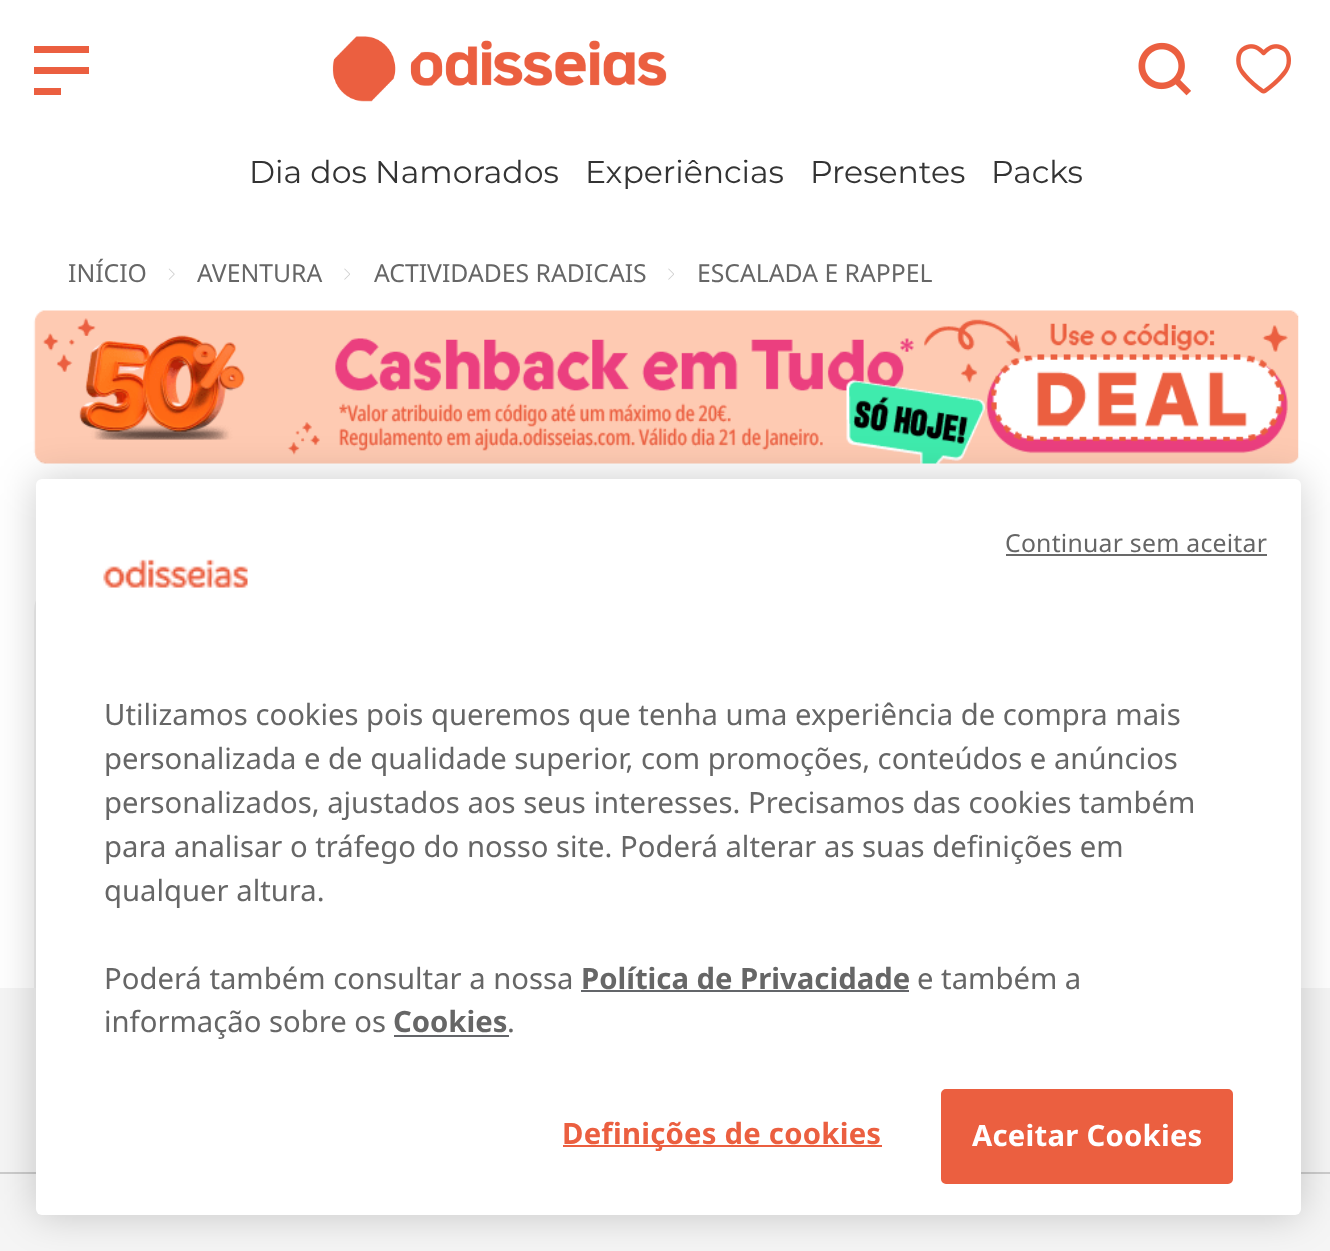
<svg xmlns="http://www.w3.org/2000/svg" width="1330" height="1251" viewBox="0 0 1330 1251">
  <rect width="100%" height="100%" fill="rgb(255,255,255)"/>
  <path d="M34 95V88H61V95ZM34 74V67H89V74ZM34 53V46H89V53Z" fill="rgb(235,95,64)"/>
  <image x="332" y="36" width="335" height="66" href="pic1.png"/>
  <image x="1138" y="42" width="53" height="54" href="pic2.png"/>
  <image x="1236" y="44" width="55" height="50" href="pic3.png"/>
  <g font-family="Montserrat" font-size="31.5" fill="rgb(51,51,51)">
    <text x="249" y="183">Dia dos Namorados</text>
    <text x="585" y="183">Experiências</text>
    <text x="810" y="183">Presentes</text>
    <text x="991" y="183">Packs</text>
  </g>
  <text x="68" y="282" font-family="Noto Sans" font-size="24.75" fill="rgb(102,102,102)">INÍCIO</text>
  <image x="168" y="268" width="7" height="12" href="pic4.png"/>
  <text x="197" y="282" font-family="Noto Sans" font-size="24.75" fill="rgb(102,102,102)">AVENTURA</text>
  <image x="344" y="268" width="6" height="12" href="pic5.png"/>
  <text x="374" y="282" font-family="Noto Sans" font-size="24.75" fill="rgb(102,102,102)">ACTIVIDADES RADICAIS</text>
  <image x="668" y="268" width="6" height="12" href="pic5.png"/>
  <text x="697" y="282" font-family="Noto Sans" font-size="24.75" fill="rgb(102,102,102)">ESCALADA E RAPPEL</text>
  <image x="33" y="310" width="1266" height="154" href="pic6.png"/>
  <rect x="35" y="577" width="1262" height="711" rx="35" fill="none" stroke="rgb(242,242,242)" stroke-width="2"/>
  <rect x="0" y="988" width="1330" height="263" fill="rgb(245,245,245)"/>
  <rect x="0" y="1172" width="1330" height="2" fill="rgb(204,204,204)"/>
  <rect x="36" y="479" width="1265" height="736" rx="6" fill="rgba(0,0,0,0.2)" filter="blur(20px)"/>
  <rect x="36" y="479" width="1265" height="736" rx="6" fill="rgb(255,255,255)"/>
  <text x="1005" y="552" font-family="Noto Sans" font-size="24.75" letter-spacing="0.25" fill="rgb(102,102,102)">Continuar sem aceitar</text>
  <rect x="1006" y="554" width="261" height="2" fill="rgb(105,105,105)"/>
  <image x="103" y="559" width="145" height="29" href="pic7.png"/>
  <g font-family="Noto Sans" font-size="29.25" fill="rgb(102,102,102)">
    <text>
      <tspan x="104" y="725">Utilizamos cookies pois queremos que tenha uma experiência de compra mais</tspan>
      <tspan x="104" y="769">personalizada e de qualidade superior, com promoções, conteúdos e anúncios</tspan>
      <tspan x="104" y="813">personalizados, ajustados aos seus interesses. Precisamos das cookies também</tspan>
      <tspan x="104" y="857">para analisar o tráfego do nosso site. Poderá alterar as suas definições em</tspan>
      <tspan x="104" y="901">qualquer altura.</tspan>
    </text>
    <text x="104" y="989">Poderá também consultar a nossa</text>
  </g>
  <text x="581" y="989" font-family="Noto Sans" font-size="29.25" font-weight="bold" fill="rgb(102,102,102)">Política de Privacidade</text>
  <rect x="581" y="990" width="328" height="2" fill="rgb(99,101,105)"/>
  <g font-family="Noto Sans" font-size="29.25" fill="rgb(102,102,102)">
    <text x="917" y="989">e também a</text>
    <text x="104" y="1032">informação sobre os</text>
  </g>
  <text x="393" y="1032" font-family="Noto Sans" font-size="29.25" font-weight="bold" fill="rgb(102,102,102)">Cookies</text>
  <rect x="394" y="1035" width="115" height="2" fill="rgb(99,101,105)"/>
  <text x="507" y="1032" font-family="Noto Sans" font-size="29.25" fill="rgb(102,102,102)">.</text>
  <rect x="563" y="1145" width="319" height="2" fill="rgb(235,95,64)"/>
  <text x="562" y="1144" font-family="Noto Sans" font-size="29.25" font-weight="bold" letter-spacing="0.25" fill="rgb(235,95,64)">Definições de cookies</text>
  <rect x="942" y="1090" width="290" height="93" rx="4" fill="rgb(235,95,64)" stroke="rgb(235,95,64)" stroke-width="2"/>
  <text x="972" y="1146" font-family="Noto Sans" font-size="29.25" font-weight="bold" letter-spacing="0.25" fill="rgb(255,255,255)">Aceitar Cookies</text>
</svg>
